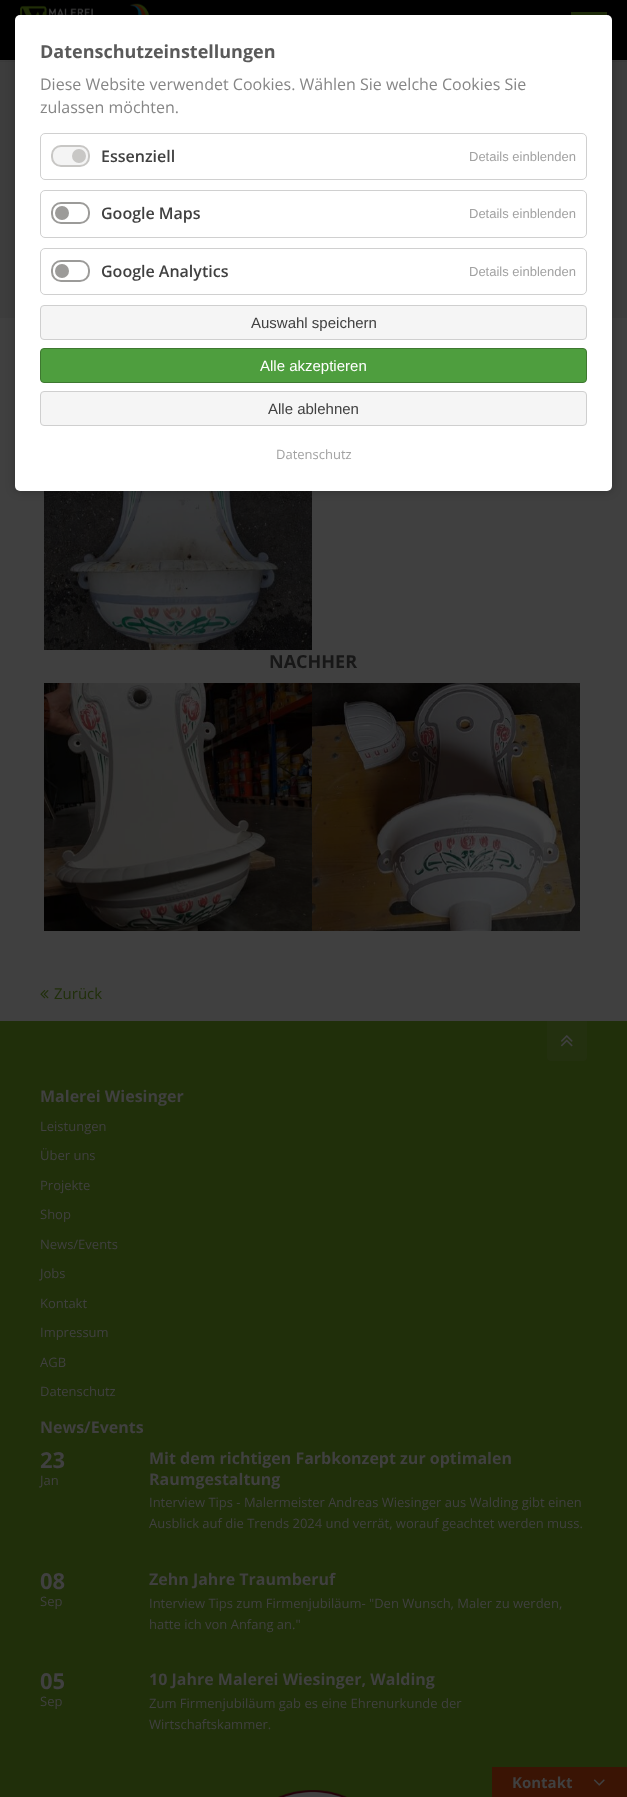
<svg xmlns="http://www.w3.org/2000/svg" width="627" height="1797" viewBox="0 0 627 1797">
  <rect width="100%" height="100%" fill="rgb(64,64,64)"/>
  <rect x="0" y="0" width="627" height="60" fill="rgb(0,0,0)"/>
  <rect x="0" y="60" width="627" height="1" fill="rgb(60,60,60)"/>
  <image x="20" y="3" width="130" height="12" href="pic1.png"/>
  <rect x="571" y="12" width="36" height="3" fill="rgb(32,47,10)"/>
  <rect x="0" y="61" width="627" height="1" fill="rgb(58,58,58)"/>
  <rect x="0" y="62" width="627" height="256" fill="rgb(61,61,61)"/>
  <image x="44" y="491" width="268" height="159" href="pic2.png"/>
  <rect x="15" y="15" width="597" height="476" rx="5" fill="rgba(0,0,0,0.25)" filter="blur(5px)"/>
  <rect x="15" y="15" width="597" height="476" rx="5" fill="rgb(255,255,255)"/>
  <text x="40" y="58" font-family="Open Sans" font-size="18" font-weight="bold" fill="rgb(90,90,90)">Datenschutzeinstellungen</text>
  <g font-family="Open Sans" font-size="16" fill="rgb(134,134,134)">
    <text>
      <tspan x="40" y="90">Diese Website verwendet Cookies. Wählen Sie welche Cookies Sie</tspan>
      <tspan x="40" y="113">zulassen möchten.</tspan>
    </text>
  </g>
  <rect x="40.5" y="133.5" width="546" height="46" rx="4.5" fill="none" stroke="rgb(208,208,208)"/>
  <rect x="52" y="146" width="37" height="20" rx="9" fill="rgb(244,244,244)" stroke="rgb(200,199,197)" stroke-width="2"/>
  <circle cx="79" cy="156" r="7" fill="rgb(200,199,197)"/>
  <text x="101" y="162" font-family="Open Sans" font-size="16" font-weight="600" fill="rgb(64,64,64)">Essenziell</text>
  <text x="469" y="161" font-family="Liberation Sans" font-size="13" fill="rgb(162,162,162)">Details einblenden</text>
  <rect x="40.5" y="190.5" width="546" height="47" rx="4.5" fill="none" stroke="rgb(208,208,208)"/>
  <rect x="52" y="203" width="37" height="20" rx="9" fill="none" stroke="rgb(156,155,153)" stroke-width="2"/>
  <circle cx="62" cy="213" r="7" fill="rgb(156,155,153)"/>
  <text x="101" y="219" font-family="Open Sans" font-size="16" font-weight="600" fill="rgb(64,64,64)">Google Maps</text>
  <text x="469" y="218" font-family="Liberation Sans" font-size="13" fill="rgb(162,162,162)">Details einblenden</text>
  <rect x="40.5" y="248.5" width="546" height="46" rx="4.5" fill="none" stroke="rgb(208,208,208)"/>
  <rect x="52" y="261" width="37" height="20" rx="9" fill="none" stroke="rgb(156,155,153)" stroke-width="2"/>
  <circle cx="62" cy="271" r="7" fill="rgb(156,155,153)"/>
  <text x="101" y="277" font-family="Open Sans" font-size="16" font-weight="600" fill="rgb(64,64,64)">Google Analytics</text>
  <text x="469" y="276" font-family="Liberation Sans" font-size="13" fill="rgb(162,162,162)">Details einblenden</text>
  <rect x="40.5" y="305.5" width="546" height="34" rx="3.5" fill="rgb(245,245,245)" stroke="rgb(207,207,207)"/>
  <text x="251" y="328" font-family="Liberation Sans" font-size="15" fill="rgb(64,64,64)">Auswahl speichern</text>
  <rect x="40.5" y="348.5" width="546" height="34" rx="3.5" fill="rgb(78,158,62)" stroke="rgb(62,120,48)"/>
  <text x="260" y="371" font-family="Liberation Sans" font-size="15" fill="rgb(255,255,255)">Alle akzeptieren</text>
  <rect x="40.5" y="391.5" width="546" height="34" rx="3.5" fill="rgb(245,245,245)" stroke="rgb(207,207,207)"/>
  <text x="268" y="414" font-family="Liberation Sans" font-size="15" fill="rgb(64,64,64)">Alle ablehnen</text>
  <text x="276" y="459" font-family="Open Sans" font-size="13" fill="rgb(162,162,162)">Datenschutz</text>
  <text x="269" y="668" font-family="Open Sans" font-size="18" font-weight="bold" fill="rgb(23,23,23)">NACHHER</text>
  <image x="44" y="683" width="268" height="248" href="pic3.png"/>
  <image x="312" y="683" width="268" height="248" href="pic4.png"/>
  <image x="40" y="990" width="9" height="9" href="pic5.png"/>
  <text x="54" y="999" font-family="Open Sans" font-size="15" fill="rgb(32,47,10)">Zurück</text>
  <rect x="0" y="1021" width="627" height="776" fill="rgb(32,47,10)"/>
  <rect x="492" y="1767" width="135" height="30" fill="rgb(58,20,4)"/>
  <text x="512" y="1788" font-family="Open Sans" font-size="15" font-weight="bold" fill="rgb(64,64,64)">Kontakt</text>
  <image x="593" y="1779" width="12" height="7" href="pic6.png"/>
  <path d="M547 1021H587V1058C587 1059.5 585.5 1061 584 1061H550C548.5 1061 547 1059.5 547 1058Z" fill="rgb(35,48,15)"/>
  <image x="560" y="1035" width="13" height="12" href="pic7.png"/>
  <text x="40" y="1102" font-family="Open Sans" font-size="16" font-weight="bold" fill="rgb(64,64,64)">Malerei Wiesinger</text>
  <g font-family="Open Sans" font-size="13" fill="rgb(64,64,64)">
    <text x="40" y="1131">Leistungen</text>
    <text x="40" y="1160">Über uns</text>
    <text x="40" y="1190">Projekte</text>
    <text x="40" y="1219">Shop</text>
    <text x="40" y="1249">News/Events</text>
    <text x="40" y="1278">Jobs</text>
    <text x="40" y="1308">Kontakt</text>
    <text x="40" y="1337">Impressum</text>
    <text x="40" y="1367">AGB</text>
    <text x="40" y="1396">Datenschutz</text>
  </g>
  <text x="40" y="1433" font-family="Open Sans" font-size="16" font-weight="bold" fill="rgb(64,64,64)">News/Events</text>
  <text x="40" y="1468" font-family="Open Sans" font-size="22" font-weight="bold" fill="rgb(64,64,64)">23</text>
  <text x="40" y="1485" font-family="Open Sans" font-size="13" fill="rgb(64,64,64)">Jan</text>
  <g font-family="Open Sans" font-size="16" font-weight="bold" fill="rgb(64,64,64)">
    <text>
      <tspan x="149" y="1464">Mit dem richtigen Farbkonzept zur optimalen</tspan>
      <tspan x="149" y="1485">Raumgestaltung</tspan>
    </text>
  </g>
  <g font-family="Open Sans" font-size="13" fill="rgb(64,64,64)">
    <text>
      <tspan x="149" y="1507">Interview Tips - Malermeister Andreas Wiesinger aus Walding gibt einen</tspan>
      <tspan x="149" y="1528">Ausblick auf die Trends 2024 und verrät, worauf geachtet werden muss.</tspan>
    </text>
  </g>
  <text x="40" y="1589" font-family="Open Sans" font-size="22" font-weight="bold" fill="rgb(64,64,64)">08</text>
  <text x="40" y="1606" font-family="Open Sans" font-size="13" fill="rgb(64,64,64)">Sep</text>
  <text x="149" y="1585" font-family="Open Sans" font-size="16" font-weight="bold" fill="rgb(64,64,64)">Zehn Jahre Traumberuf</text>
  <g font-family="Open Sans" font-size="13" fill="rgb(64,64,64)">
    <text>
      <tspan x="149" y="1608">Interview Tips zum Firmenjubiläum- "Den Wunsch, Maler zu werden,</tspan>
      <tspan x="149" y="1629">hatte ich von Anfang an."</tspan>
    </text>
  </g>
  <text x="40" y="1689" font-family="Open Sans" font-size="22" font-weight="bold" fill="rgb(64,64,64)">05</text>
  <text x="40" y="1706" font-family="Open Sans" font-size="13" fill="rgb(64,64,64)">Sep</text>
  <text x="149" y="1685" font-family="Open Sans" font-size="16" font-weight="bold" fill="rgb(64,64,64)">10 Jahre Malerei Wiesinger, Walding</text>
  <g font-family="Open Sans" font-size="13" fill="rgb(64,64,64)">
    <text>
      <tspan x="149" y="1708">Zum Firmenjubiläum gab es eine Ehrenurkunde der</tspan>
      <tspan x="149" y="1729">Wirtschaftskammer.</tspan>
    </text>
  </g>
  <image x="278" y="1790" width="69" height="7" href="pic8.png"/>
</svg>
